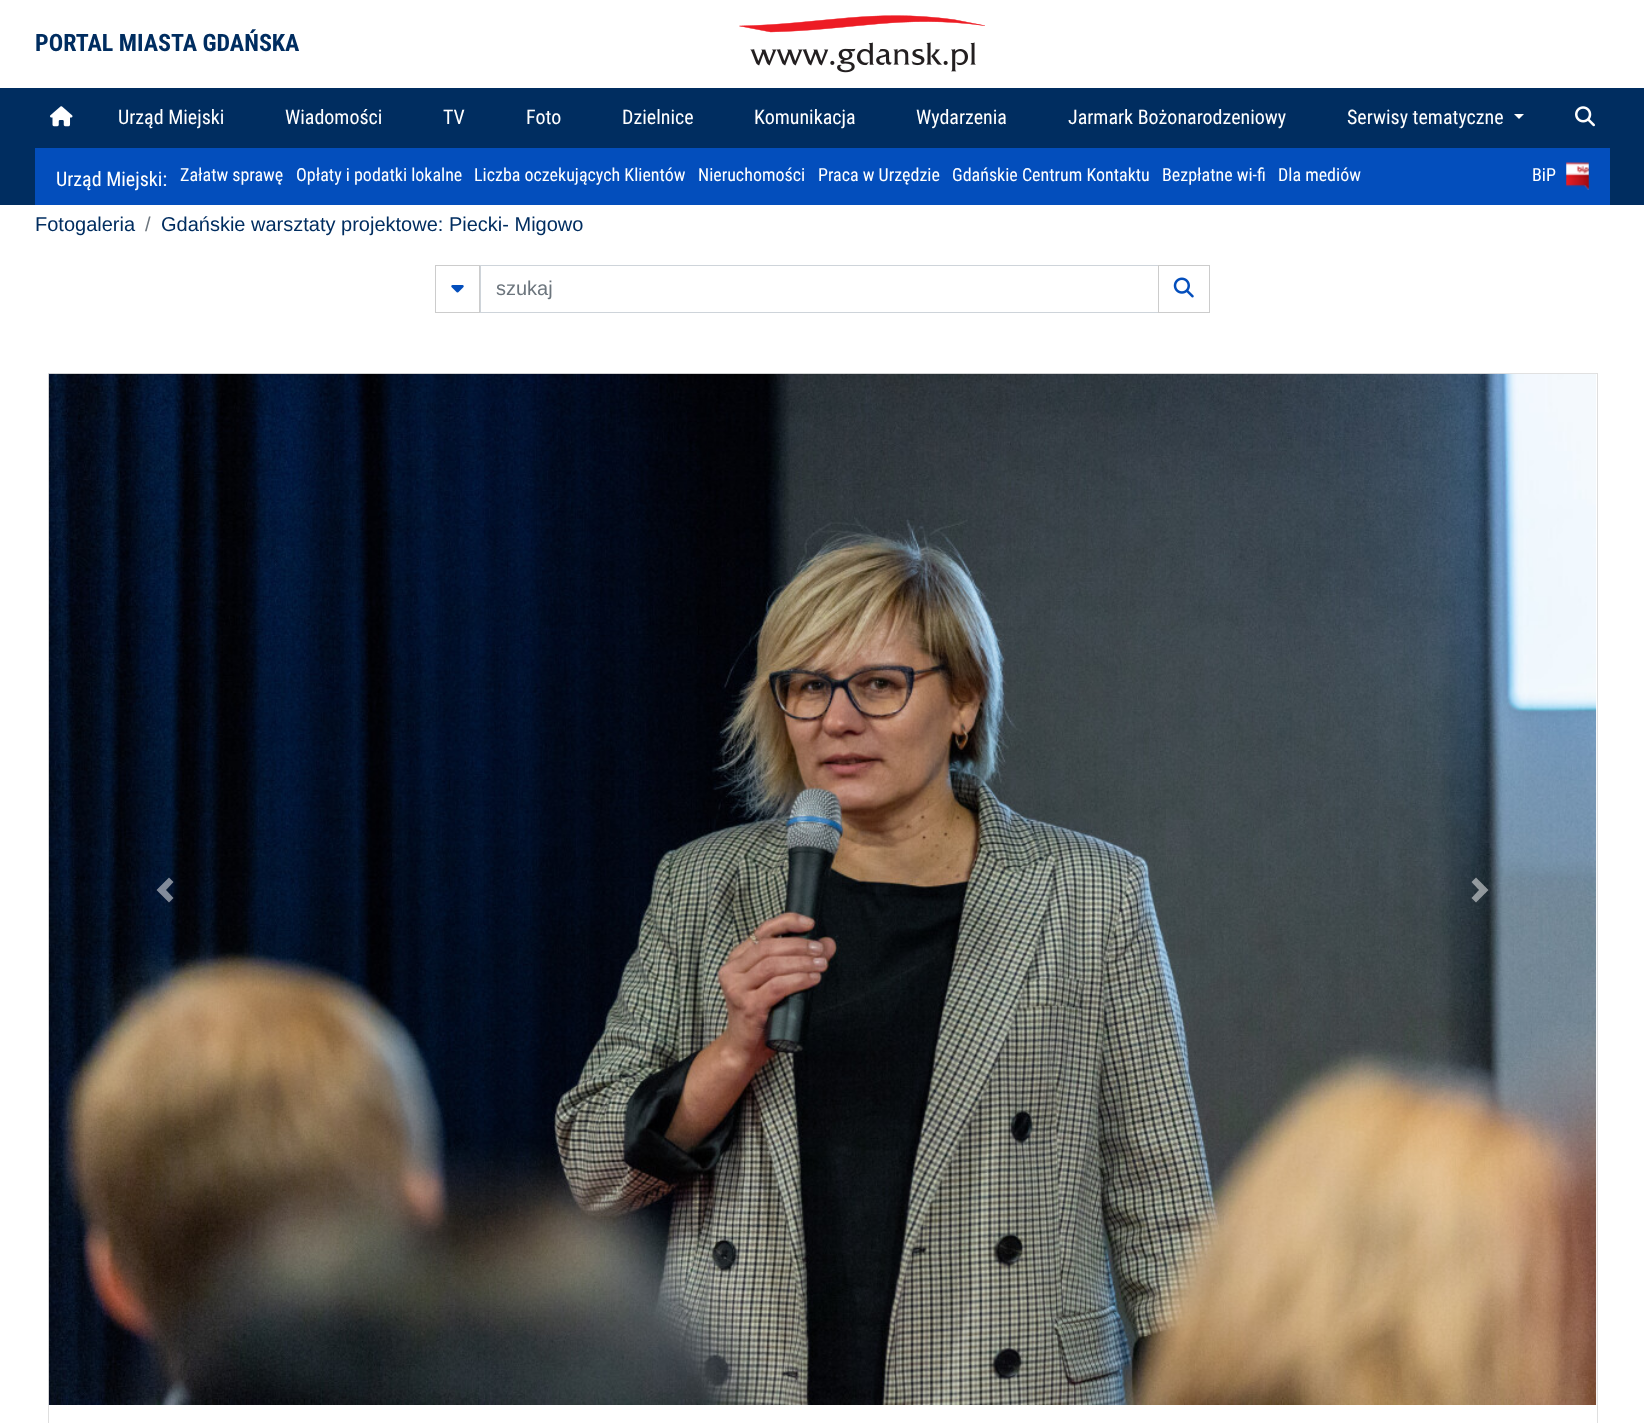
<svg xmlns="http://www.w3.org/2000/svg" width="1644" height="1423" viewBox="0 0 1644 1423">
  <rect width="100%" height="100%" fill="rgb(255,255,255)"/>
  <text x="35" y="51" font-family="Roboto Condensed" font-size="24" font-weight="bold" fill="rgb(0,45,96)">PORTAL MIASTA GDAŃSKA</text>
  <image x="739" y="15" width="246" height="58" href="pic1.png"/>
  <rect x="0" y="88" width="1644" height="117" fill="rgb(0,45,96)"/>
  <image x="50" y="106" width="23" height="21" href="pic2.png"/>
  <g font-family="Roboto Condensed" font-size="20" fill="rgb(255,255,255)">
    <text x="118" y="124">Urząd Miejski</text>
    <text x="285" y="124">Wiadomości</text>
    <text x="443" y="124">TV</text>
    <text x="526" y="124">Foto</text>
    <text x="622" y="124">Dzielnice</text>
    <text x="754" y="124">Komunikacja</text>
    <text x="916" y="124">Wydarzenia</text>
    <text x="1068" y="124">Jarmark Bożonarodzeniowy</text>
    <text x="1347" y="124">Serwisy tematyczne</text>
  </g>
  <path d="M1514 114H1524L1519 119Z" fill="rgb(255,255,255)"/>
  <image x="1575" y="106" width="20" height="21" href="pic3.png"/>
  <rect x="35" y="148" width="1575" height="57" fill="rgb(3,78,188)"/>
  <text x="56" y="186" font-family="Roboto Condensed" font-size="20" fill="rgb(255,255,255)">Urząd Miejski:</text>
  <g font-family="Roboto Condensed" font-size="18" fill="rgb(255,255,255)">
    <text x="180" y="181">Załatw sprawę</text>
    <text x="296" y="181">Opłaty i podatki lokalne</text>
    <text x="474" y="181">Liczba oczekujących Klientów</text>
    <text x="698" y="181">Nieruchomości</text>
    <text x="818" y="181">Praca w Urzędzie</text>
    <text x="952" y="181">Gdańskie Centrum Kontaktu</text>
    <text x="1162" y="181">Bezpłatne wi-fi</text>
    <text x="1278" y="181">Dla mediów</text>
    <text x="1532" y="181">BiP</text>
  </g>
  <image x="1566" y="162" width="23" height="28" href="pic4.png"/>
  <text x="35" y="231" font-family="Liberation Sans" font-size="20" fill="rgb(0,45,96)">Fotogaleria</text>
  <text x="145" y="231" font-family="Liberation Sans" font-size="20" fill="rgb(108,117,125)">/</text>
  <text x="161" y="231" font-family="Liberation Sans" font-size="20" fill="rgb(0,45,96)">Gdańskie warsztaty projektowe: Piecki- Migowo</text>
  <rect x="435.5" y="265.5" width="44" height="47" fill="none" stroke="rgb(204,204,204)"/>
  <image x="451" y="285" width="13" height="8" href="pic5.png"/>
  <rect x="480.5" y="265.5" width="678" height="47" fill="none" stroke="rgb(206,212,218)"/>
  <text x="496" y="295" font-family="Liberation Sans" font-size="20" fill="rgb(108,117,125)">szukaj</text>
  <rect x="1158.5" y="265.5" width="51" height="47" fill="none" stroke="rgb(204,204,204)"/>
  <image x="1173" y="277" width="21" height="21" href="pic6.png"/>
  <rect x="48.5" y="373.5" width="1549" height="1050" fill="none" stroke="rgb(223,223,223)"/>
  <image x="48" y="373" width="1549" height="1032" href="pic7.png"/>
  <path d="M169 877.5L156.5 890L169 902.5L173.5 898L166 890L173.5 882Z" fill="rgba(255,255,255,0.5)"/>
  <path d="M1476 877.5L1471.5 882L1479 890L1471.5 898L1476 902.5L1488.5 890Z" fill="rgba(255,255,255,0.5)"/>
</svg>
